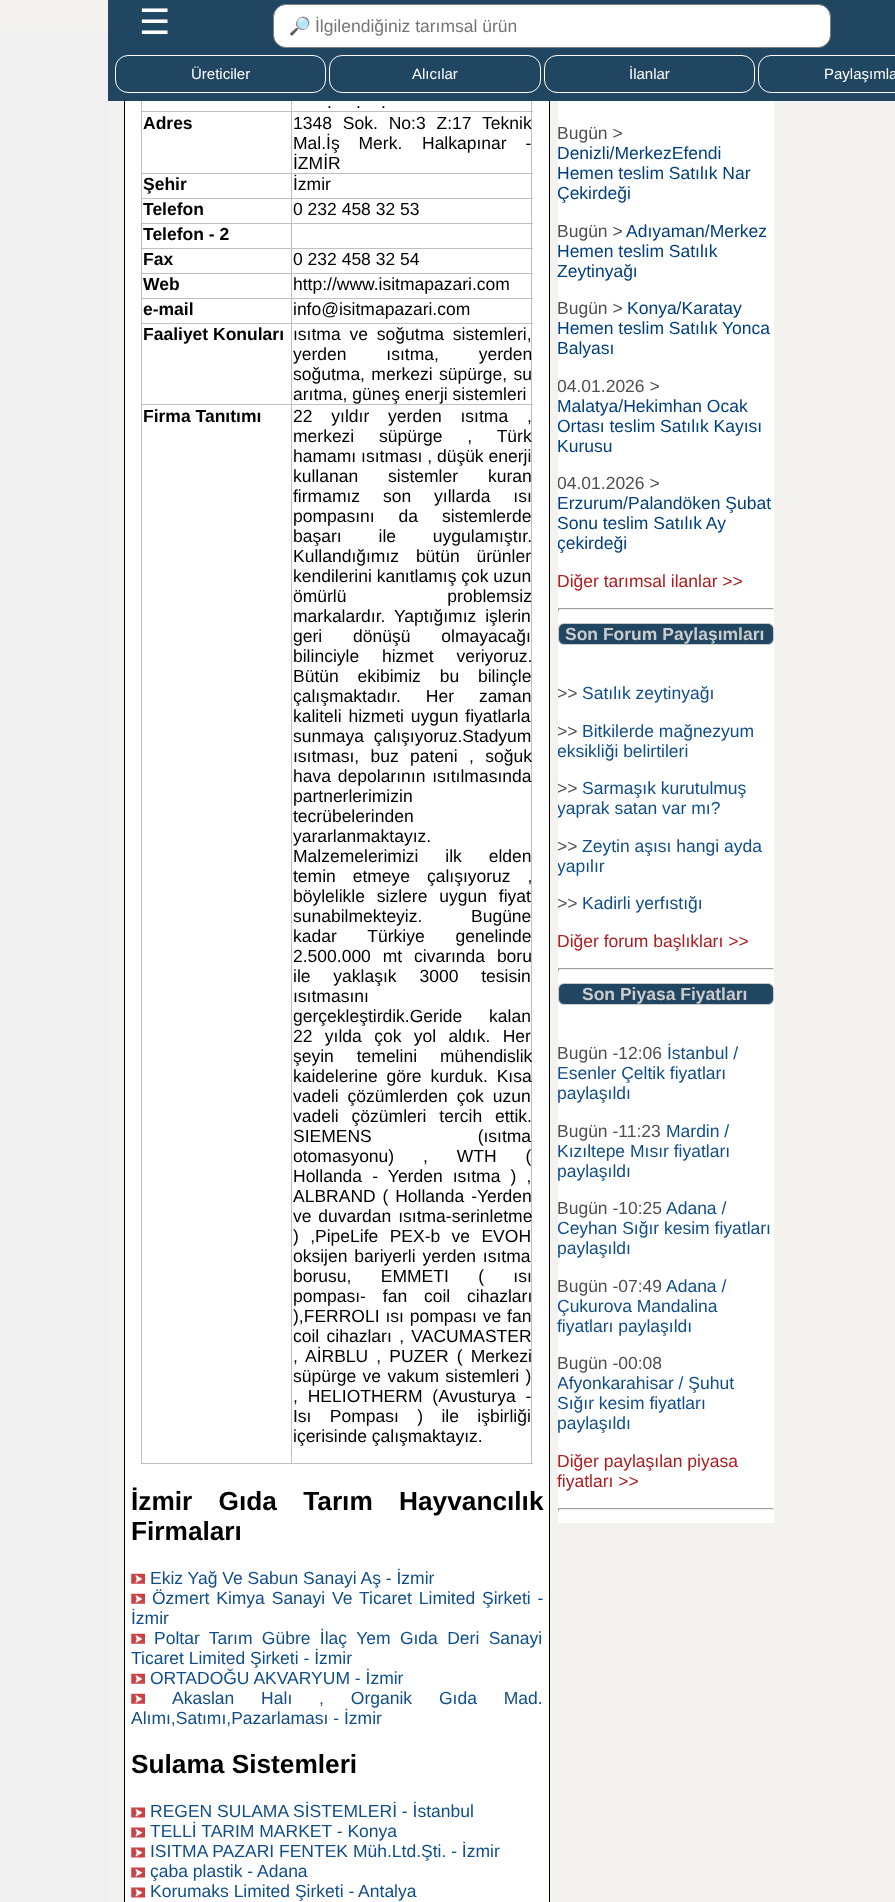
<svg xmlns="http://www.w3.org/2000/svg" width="895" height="1902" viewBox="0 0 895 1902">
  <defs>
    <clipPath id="clip1"><rect x="558" y="63" width="216" height="556"/></clipPath>
    <clipPath id="clip2"><rect x="558" y="623" width="216" height="356"/></clipPath>
    <clipPath id="clip3"><rect x="558" y="983" width="216" height="536"/></clipPath>
  </defs>
  <rect width="100%" height="100%" fill="rgb(243,242,239)"/>
  <rect x="0" y="30" width="108" height="1872" fill="rgb(240,240,240)"/>
  <rect x="125" y="101" width="424" height="1801" fill="rgb(255,255,255)"/>
  <rect x="124.5" y="63.5" width="425" height="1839" fill="none" stroke="rgb(0,0,0)"/>
  <rect x="108" y="0" width="787" height="101" fill="rgb(33,70,97)"/>
  <text x="139" y="34" font-family="DejaVu Sans" font-size="35" fill="rgb(255,255,255)">☰</text>
  <rect x="273.5" y="4.5" width="557" height="43" rx="12.5" fill="rgb(255,255,255)" stroke="rgb(128,128,128)"/>
  <text x="289" y="32" font-family="Noto Color Emoji" font-size="17.5" fill="rgb(117,117,117)">🔎</text>
  <text x="315" y="32" font-family="Liberation Sans" font-size="17.5" fill="rgb(117,117,117)">İlgilendiğiniz tarımsal ürün</text>
  <rect x="115.5" y="55.5" width="210" height="37" rx="12.5" fill="none" stroke="rgb(255,255,255)"/>
  <text x="191" y="79" font-family="Liberation Sans" font-size="15" fill="rgb(255,255,255)">Üreticiler</text>
  <rect x="329.5" y="55.5" width="211" height="37" rx="12.5" fill="none" stroke="rgb(255,255,255)"/>
  <text x="412" y="79" font-family="Liberation Sans" font-size="15" fill="rgb(255,255,255)">Alıcılar</text>
  <rect x="544.5" y="55.5" width="210" height="37" rx="12.5" fill="none" stroke="rgb(255,255,255)"/>
  <text x="629" y="79" font-family="Liberation Sans" font-size="15" fill="rgb(255,255,255)">İlanlar</text>
  <rect x="758.5" y="55.5" width="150" height="37" rx="12.5" fill="none" stroke="rgb(255,255,255)"/>
  <text x="824" y="79" font-family="Liberation Sans" font-size="15" fill="rgb(255,255,255)">Paylaşımla</text>
  <rect x="531" y="101" width="1" height="1363" fill="rgb(192,192,192)"/>
  <rect x="141" y="1463" width="392" height="1" fill="rgb(192,192,192)"/>
  <rect x="141" y="101" width="1" height="1363" fill="rgb(192,192,192)"/>
  <rect x="291" y="111" width="242" height="1" fill="rgb(192,192,192)"/>
  <rect x="291" y="173" width="242" height="1" fill="rgb(192,192,192)"/>
  <rect x="291" y="198" width="242" height="1" fill="rgb(192,192,192)"/>
  <rect x="291" y="223" width="242" height="1" fill="rgb(192,192,192)"/>
  <rect x="291" y="248" width="242" height="1" fill="rgb(192,192,192)"/>
  <rect x="291" y="273" width="242" height="1" fill="rgb(192,192,192)"/>
  <rect x="291" y="298" width="242" height="1" fill="rgb(192,192,192)"/>
  <rect x="291" y="323" width="242" height="1" fill="rgb(192,192,192)"/>
  <rect x="291" y="404" width="242" height="1" fill="rgb(192,192,192)"/>
  <rect x="291" y="404" width="1" height="1060" fill="rgb(192,192,192)"/>
  <rect x="141" y="404" width="152" height="1" fill="rgb(192,192,192)"/>
  <rect x="291" y="323" width="1" height="82" fill="rgb(192,192,192)"/>
  <rect x="141" y="323" width="152" height="1" fill="rgb(192,192,192)"/>
  <rect x="291" y="298" width="1" height="26" fill="rgb(192,192,192)"/>
  <rect x="141" y="298" width="152" height="1" fill="rgb(192,192,192)"/>
  <rect x="291" y="273" width="1" height="26" fill="rgb(192,192,192)"/>
  <rect x="141" y="273" width="152" height="1" fill="rgb(192,192,192)"/>
  <rect x="291" y="248" width="1" height="26" fill="rgb(192,192,192)"/>
  <rect x="141" y="248" width="152" height="1" fill="rgb(192,192,192)"/>
  <rect x="291" y="223" width="1" height="26" fill="rgb(192,192,192)"/>
  <rect x="141" y="223" width="152" height="1" fill="rgb(192,192,192)"/>
  <rect x="291" y="198" width="1" height="26" fill="rgb(192,192,192)"/>
  <rect x="141" y="198" width="152" height="1" fill="rgb(192,192,192)"/>
  <rect x="291" y="173" width="1" height="26" fill="rgb(192,192,192)"/>
  <rect x="141" y="173" width="152" height="1" fill="rgb(192,192,192)"/>
  <rect x="291" y="111" width="1" height="63" fill="rgb(192,192,192)"/>
  <rect x="141" y="111" width="152" height="1" fill="rgb(192,192,192)"/>
  <rect x="291" y="101" width="1" height="12" fill="rgb(192,192,192)"/>
  <g font-family="Liberation Sans" font-size="17.5" fill="rgb(0,0,0)">
    <text x="327" y="108">.</text>
    <text x="356" y="108">.</text>
    <text x="381" y="108">.</text>
  </g>
  <text x="143" y="129" font-family="Liberation Sans" font-size="17.5" font-weight="bold" fill="rgb(0,0,0)">Adres</text>
  <g font-family="Liberation Sans" font-size="17.5" fill="rgb(0,0,0)">
    <text>
      <tspan x="293" y="129" word-spacing="6">1348 Sok. No:3 Z:17 Teknik</tspan>
      <tspan x="293" y="149" word-spacing="14">Mal.İş Merk.</tspan>
    </text>
    <text x="422" y="149" word-spacing="14">Halkapınar -</text>
    <text x="293" y="169">İZMİR</text>
  </g>
  <text x="143" y="190" font-family="Liberation Sans" font-size="17.5" font-weight="bold" fill="rgb(0,0,0)">Şehir</text>
  <text x="293" y="190" font-family="Liberation Sans" font-size="17.5" fill="rgb(0,0,0)">İzmir</text>
  <text x="143" y="215" font-family="Liberation Sans" font-size="17.5" font-weight="bold" fill="rgb(0,0,0)">Telefon</text>
  <text x="293" y="215" font-family="Liberation Sans" font-size="17.5" fill="rgb(0,0,0)">0 232 458 32 53</text>
  <g font-family="Liberation Sans" font-size="17.5" font-weight="bold" fill="rgb(0,0,0)">
    <text>
      <tspan x="143" y="240">Telefon - 2</tspan>
      <tspan x="143" y="265">Fax</tspan>
    </text>
  </g>
  <text x="293" y="265" font-family="Liberation Sans" font-size="17.5" fill="rgb(0,0,0)">0 232 458 32 54</text>
  <text x="143" y="290" font-family="Liberation Sans" font-size="17.5" font-weight="bold" fill="rgb(0,0,0)">Web</text>
  <text x="293" y="290" font-family="Liberation Sans" font-size="17.5" fill="rgb(0,0,0)">http://www.isitmapazari.com</text>
  <text x="143" y="315" font-family="Liberation Sans" font-size="17.5" font-weight="bold" fill="rgb(0,0,0)">e-mail</text>
  <text x="293" y="315" font-family="Liberation Sans" font-size="17.5" fill="rgb(0,0,0)">info@isitmapazari.com</text>
  <text x="143" y="340" font-family="Liberation Sans" font-size="17.5" font-weight="bold" fill="rgb(0,0,0)">Faaliyet Konuları</text>
  <g font-family="Liberation Sans" font-size="17.5" fill="rgb(0,0,0)">
    <text>
      <tspan x="293" y="340" word-spacing="4">ısıtma ve soğutma sistemleri,</tspan>
      <tspan x="293" y="360" word-spacing="35">yerden ısıtma, yerden</tspan>
      <tspan x="293" y="380" word-spacing="1.5">soğutma, merkezi süpürge, su</tspan>
      <tspan x="293" y="400">arıtma, güneş enerji sistemleri</tspan>
    </text>
  </g>
  <text x="143" y="422" font-family="Liberation Sans" font-size="17.5" font-weight="bold" fill="rgb(0,0,0)">Firma Tanıtımı</text>
  <g font-family="Liberation Sans" font-size="17.5" fill="rgb(0,0,0)">
    <text>
      <tspan x="293" y="422" word-spacing="14">22 yıldır yerden ısıtma ,</tspan>
      <tspan x="293" y="442" word-spacing="20">merkezi süpürge , Türk</tspan>
      <tspan x="293" y="462">hamamı ısıtması , düşük enerji</tspan>
      <tspan x="293" y="482" word-spacing="25">kullanan sistemler kuran</tspan>
      <tspan x="293" y="502" word-spacing="18">firmamız son yıllarda ısı</tspan>
      <tspan x="293" y="522" word-spacing="19">pompasını da sistemlerde</tspan>
      <tspan x="293" y="542" word-spacing="32">başarı ile uygulamıştır.</tspan>
      <tspan x="293" y="562" word-spacing="12">Kullandığımız bütün ürünler</tspan>
      <tspan x="293" y="582">kendilerini kanıtlamış çok uzun</tspan>
      <tspan x="293" y="602" word-spacing="96">ömürlü problemsiz</tspan>
      <tspan x="293" y="622" word-spacing="4">markalardır. Yaptığımız işlerin</tspan>
      <tspan x="293" y="642" word-spacing="26">geri dönüşü olmayacağı</tspan>
      <tspan x="293" y="662" word-spacing="18">bilinciyle hizmet veriyoruz.</tspan>
      <tspan x="293" y="682" word-spacing="14">Bütün ekibimiz bu bilinçle</tspan>
      <tspan x="293" y="702" word-spacing="20">çalışmaktadır. Her zaman</tspan>
      <tspan x="293" y="722" word-spacing="2">kaliteli hizmeti uygun fiyatlarla</tspan>
      <tspan x="293" y="742" word-spacing="5">sunmaya çalışıyoruz.Stadyum</tspan>
      <tspan x="293" y="762" word-spacing="6.5">ısıtması, buz pateni , soğuk</tspan>
      <tspan x="293" y="782" word-spacing="2">hava depolarının ısıtılmasında</tspan>
      <tspan x="293" y="802">partnerlerimizin</tspan>
      <tspan x="293" y="822">tecrübelerinden</tspan>
      <tspan x="293" y="842">yararlanmaktayız.</tspan>
      <tspan x="293" y="862" word-spacing="22">Malzemelerimizi ilk elden</tspan>
      <tspan x="293" y="882" word-spacing="12">temin etmeye çalışıyoruz ,</tspan>
      <tspan x="293" y="902" word-spacing="7">böylelikle sizlere uygun fiyat</tspan>
      <tspan x="293" y="922">sunabilmekteyiz.</tspan>
    </text>
    <text x="471" y="922">Bugüne</text>
    <text>
      <tspan x="293" y="942" word-spacing="26">kadar Türkiye genelinde</tspan>
      <tspan x="293" y="962" word-spacing="7">2.500.000 mt civarında boru</tspan>
      <tspan x="293" y="982" word-spacing="18">ile yaklaşık 3000 tesisin</tspan>
      <tspan x="293" y="1002">ısıtmasını</tspan>
      <tspan x="293" y="1022" word-spacing="22">gerçekleştirdik.Geride kalan</tspan>
      <tspan x="293" y="1042" word-spacing="7.5">22 yılda çok yol aldık. Her</tspan>
      <tspan x="293" y="1062" word-spacing="18">şeyin temelini mühendislik</tspan>
      <tspan x="293" y="1082" word-spacing="4">kaidelerine göre kurduk. Kısa</tspan>
      <tspan x="293" y="1102" word-spacing="4">vadeli çözümlerden çok uzun</tspan>
      <tspan x="293" y="1122" word-spacing="8">vadeli çözümleri tercih ettik.</tspan>
      <tspan x="293" y="1142" word-spacing="101">SIEMENS (ısıtma</tspan>
      <tspan x="293" y="1162" word-spacing="24">otomasyonu) , WTH (</tspan>
      <tspan x="293" y="1182" word-spacing="5.25">Hollanda - Yerden ısıtma ) ,</tspan>
      <tspan x="293" y="1202" word-spacing="2">ALBRAND ( Hollanda -Yerden</tspan>
      <tspan x="293" y="1222" word-spacing="2">ve duvardan ısıtma-serinletme</tspan>
      <tspan x="293" y="1242" word-spacing="6.5">) ,PipeLife PEX-b ve EVOH</tspan>
      <tspan x="293" y="1262" word-spacing="2">oksijen bariyerli yerden ısıtma</tspan>
      <tspan x="293" y="1282" word-spacing="24.5">borusu, EMMETI ( ısı</tspan>
      <tspan x="293" y="1302" word-spacing="12">pompası- fan coil cihazları</tspan>
      <tspan x="293" y="1322" word-spacing="1">),FERROLI ısı pompası ve fan</tspan>
      <tspan x="293" y="1342" word-spacing="2.5">coil cihazları , VACUMASTER</tspan>
      <tspan x="293" y="1362" word-spacing="3.25">, AİRBLU , PUZER ( Merkezi</tspan>
      <tspan x="293" y="1382" word-spacing="1.5">süpürge ve vakum sistemleri )</tspan>
      <tspan x="293" y="1402" word-spacing="5">, HELIOTHERM (Avusturya -</tspan>
      <tspan x="293" y="1422" word-spacing="13.5">Isı Pompası ) ile işbirliği</tspan>
      <tspan x="293" y="1442">içerisinde çalışmaktayız.</tspan>
    </text>
  </g>
  <g font-family="Liberation Sans" font-size="26.25" font-weight="bold" fill="rgb(0,0,0)">
    <text>
      <tspan x="131" y="1510" word-spacing="19">İzmir Gıda Tarım Hayvancılık</tspan>
      <tspan x="131" y="1540">Firmaları</tspan>
    </text>
  </g>
  <image x="131" y="1573" width="14" height="11" href="pic1.png"/>
  <text x="150" y="1584" font-family="Liberation Sans" font-size="17.5" fill="rgb(16,78,139)">Ekiz Yağ Ve Sabun Sanayi Aş - İzmir</text>
  <image x="131" y="1593" width="14" height="11" href="pic1.png"/>
  <g font-family="Liberation Sans" font-size="17.5" fill="rgb(16,78,139)">
    <text x="152" y="1604" word-spacing="2">Özmert Kimya Sanayi Ve Ticaret Limited Şirketi -</text>
    <text x="131" y="1624">İzmir</text>
  </g>
  <image x="131" y="1633" width="14" height="11" href="pic1.png"/>
  <g font-family="Liberation Sans" font-size="17.5" fill="rgb(16,78,139)">
    <text x="154" y="1644" word-spacing="4.5">Poltar Tarım Gübre İlaç Yem Gıda Deri Sanayi</text>
    <text x="131" y="1664">Ticaret Limited Şirketi - İzmir</text>
  </g>
  <image x="131" y="1673" width="14" height="11" href="pic1.png"/>
  <text x="150" y="1684" font-family="Liberation Sans" font-size="17.5" fill="rgb(16,78,139)">ORTADOĞU AKVARYUM - İzmir</text>
  <image x="131" y="1693" width="14" height="11" href="pic1.png"/>
  <g font-family="Liberation Sans" font-size="17.5" fill="rgb(16,78,139)">
    <text x="172" y="1704" word-spacing="22">Akaslan Halı , Organik Gıda Mad.</text>
    <text x="131" y="1724">Alımı,Satımı,Pazarlaması - İzmir</text>
  </g>
  <text x="131" y="1773" font-family="Liberation Sans" font-size="26.25" font-weight="bold" fill="rgb(0,0,0)">Sulama Sistemleri</text>
  <image x="131" y="1807" width="14" height="11" href="pic2.png"/>
  <text x="150" y="1817" font-family="Liberation Sans" font-size="17.5" fill="rgb(16,78,139)">REGEN SULAMA SİSTEMLERİ - İstanbul</text>
  <image x="131" y="1827" width="14" height="11" href="pic2.png"/>
  <text x="150" y="1837" font-family="Liberation Sans" font-size="17.5" fill="rgb(16,78,139)">TELLİ TARIM MARKET - Konya</text>
  <image x="131" y="1847" width="14" height="11" href="pic2.png"/>
  <text x="150" y="1857" font-family="Liberation Sans" font-size="17.5" fill="rgb(16,78,139)">ISITMA PAZARI FENTEK Müh.Ltd.Şti. - İzmir</text>
  <image x="131" y="1867" width="14" height="11" href="pic2.png"/>
  <text x="150" y="1877" font-family="Liberation Sans" font-size="17.5" fill="rgb(16,78,139)">çaba plastik - Adana</text>
  <image x="131" y="1887" width="14" height="11" href="pic2.png"/>
  <text x="150" y="1897" font-family="Liberation Sans" font-size="17.5" fill="rgb(16,78,139)">Korumaks Limited Şirketi - Antalya</text>
  <rect x="558" y="101" width="216" height="1422" fill="rgb(255,255,255)"/>
  <text x="557" y="139" font-family="Liberation Sans" font-size="17.5" fill="rgb(79,79,79)">Bugün &gt;</text>
  <g font-family="Liberation Sans" font-size="17.5" fill="rgb(0,63,127)">
    <text>
      <tspan x="557" y="159">Denizli/MerkezEfendi</tspan>
      <tspan x="557" y="179">Hemen teslim Satılık Nar</tspan>
    </text>
  </g>
  <g clip-path="url(#clip1)">
    <text x="557" y="199" font-family="Liberation Sans" font-size="17.5" fill="rgb(0,63,127)">Çekirdeği</text>
  </g>
  <text x="557" y="237" font-family="Liberation Sans" font-size="17.5" fill="rgb(79,79,79)">Bugün &gt;</text>
  <g font-family="Liberation Sans" font-size="17.5" fill="rgb(0,63,127)">
    <text x="626" y="237">Adıyaman/Merkez</text>
    <text>
      <tspan x="557" y="257">Hemen teslim Satılık</tspan>
      <tspan x="557" y="277">Zeytinyağı</tspan>
    </text>
  </g>
  <text x="557" y="314" font-family="Liberation Sans" font-size="17.5" fill="rgb(79,79,79)">Bugün &gt;</text>
  <g font-family="Liberation Sans" font-size="17.5" fill="rgb(0,63,127)">
    <text x="627" y="314">Konya/Karatay</text>
    <text>
      <tspan x="557" y="334">Hemen teslim Satılık Yonca</tspan>
      <tspan x="557" y="354">Balyası</tspan>
    </text>
  </g>
  <g clip-path="url(#clip1)">
    <text x="557" y="392" font-family="Liberation Sans" font-size="17.5" fill="rgb(79,79,79)">04.01.2026 &gt;</text>
  </g>
  <text x="557" y="412" font-family="Liberation Sans" font-size="17.5" fill="rgb(0,63,127)">Malatya/Hekimhan Ocak</text>
  <g clip-path="url(#clip1)">
    <text x="557" y="432" font-family="Liberation Sans" font-size="17.5" fill="rgb(0,63,127)">Ortası teslim Satılık Kayısı</text>
  </g>
  <text x="557" y="452" font-family="Liberation Sans" font-size="17.5" fill="rgb(0,63,127)">Kurusu</text>
  <g clip-path="url(#clip1)">
    <text x="557" y="489" font-family="Liberation Sans" font-size="17.5" fill="rgb(79,79,79)">04.01.2026 &gt;</text>
  </g>
  <g font-family="Liberation Sans" font-size="17.5" fill="rgb(0,63,127)">
    <text>
      <tspan x="557" y="509">Erzurum/Palandöken Şubat</tspan>
      <tspan x="557" y="529">Sonu teslim Satılık Ay</tspan>
    </text>
  </g>
  <g clip-path="url(#clip1)">
    <text x="557" y="549" font-family="Liberation Sans" font-size="17.5" fill="rgb(0,63,127)">çekirdeği</text>
  </g>
  <text x="557" y="587" font-family="Liberation Sans" font-size="17.5" fill="rgb(173,28,28)">Diğer tarımsal ilanlar &gt;&gt;</text>
  <rect x="558" y="608" width="216" height="1" fill="rgb(159,159,159)"/>
  <rect x="773" y="608" width="1" height="3" fill="rgb(238,238,238)"/>
  <rect x="558" y="609" width="216" height="1" fill="rgb(238,238,238)"/>
  <rect x="558" y="608" width="1" height="3" fill="rgb(159,159,159)"/>
  <rect x="558.5" y="623.5" width="215" height="21" rx="5.5" fill="rgb(33,70,97)" stroke="rgb(204,204,204)"/>
  <text x="565" y="640" font-family="Liberation Sans" font-size="17.5" font-weight="bold" fill="rgb(204,204,204)">Son Forum Paylaşımları</text>
  <g clip-path="url(#clip2)">
    <text x="557" y="699" font-family="Liberation Sans" font-size="17.5" fill="rgb(79,79,79)">&gt;&gt;</text>
  </g>
  <text x="582" y="699" font-family="Liberation Sans" font-size="17.5" fill="rgb(16,78,139)">Satılık zeytinyağı</text>
  <g clip-path="url(#clip2)">
    <text x="557" y="737" font-family="Liberation Sans" font-size="17.5" fill="rgb(79,79,79)">&gt;&gt;</text>
  </g>
  <text x="582" y="737" font-family="Liberation Sans" font-size="17.5" fill="rgb(16,78,139)">Bitkilerde mağnezyum</text>
  <g clip-path="url(#clip2)">
    <text x="557" y="757" font-family="Liberation Sans" font-size="17.5" fill="rgb(16,78,139)">eksikliği belirtileri</text>
    <text x="557" y="794" font-family="Liberation Sans" font-size="17.5" fill="rgb(79,79,79)">&gt;&gt;</text>
  </g>
  <text x="582" y="794" font-family="Liberation Sans" font-size="17.5" fill="rgb(16,78,139)">Sarmaşık kurutulmuş</text>
  <g clip-path="url(#clip2)">
    <text x="557" y="814" font-family="Liberation Sans" font-size="17.5" fill="rgb(16,78,139)">yaprak satan var mı?</text>
    <text x="557" y="852" font-family="Liberation Sans" font-size="17.5" fill="rgb(79,79,79)">&gt;&gt;</text>
  </g>
  <text x="582" y="852" font-family="Liberation Sans" font-size="17.5" fill="rgb(16,78,139)">Zeytin aşısı hangi ayda</text>
  <g clip-path="url(#clip2)">
    <text x="557" y="872" font-family="Liberation Sans" font-size="17.5" fill="rgb(16,78,139)">yapılır</text>
    <text x="557" y="909" font-family="Liberation Sans" font-size="17.5" fill="rgb(79,79,79)">&gt;&gt;</text>
  </g>
  <text x="582" y="909" font-family="Liberation Sans" font-size="17.5" fill="rgb(16,78,139)">Kadirli yerfıstığı</text>
  <text x="557" y="947" font-family="Liberation Sans" font-size="17.5" fill="rgb(173,28,28)">Diğer forum başlıkları &gt;&gt;</text>
  <rect x="558" y="968" width="216" height="1" fill="rgb(159,159,159)"/>
  <rect x="773" y="968" width="1" height="3" fill="rgb(238,238,238)"/>
  <rect x="558" y="969" width="216" height="1" fill="rgb(238,238,238)"/>
  <rect x="558" y="968" width="1" height="3" fill="rgb(159,159,159)"/>
  <rect x="558.5" y="983.5" width="215" height="21" rx="5.5" fill="rgb(33,70,97)" stroke="rgb(204,204,204)"/>
  <text x="582" y="1000" font-family="Liberation Sans" font-size="17.5" font-weight="bold" fill="rgb(204,204,204)">Son Piyasa Fiyatları</text>
  <text x="557" y="1059" font-family="Liberation Sans" font-size="17.5" fill="rgb(79,79,79)">Bugün -12:06</text>
  <g font-family="Liberation Sans" font-size="17.5" fill="rgb(16,78,139)">
    <text x="667" y="1059">İstanbul /</text>
    <text>
      <tspan x="557" y="1079">Esenler Çeltik fiyatları</tspan>
      <tspan x="557" y="1099">paylaşıldı</tspan>
    </text>
  </g>
  <text x="557" y="1137" font-family="Liberation Sans" font-size="17.5" fill="rgb(79,79,79)">Bugün -11:23</text>
  <g font-family="Liberation Sans" font-size="17.5" fill="rgb(16,78,139)">
    <text x="666" y="1137">Mardin /</text>
    <text>
      <tspan x="557" y="1157">Kızıltepe Mısır fiyatları</tspan>
      <tspan x="557" y="1177">paylaşıldı</tspan>
    </text>
  </g>
  <text x="557" y="1214" font-family="Liberation Sans" font-size="17.5" fill="rgb(79,79,79)">Bugün -10:25</text>
  <text x="666" y="1214" font-family="Liberation Sans" font-size="17.5" fill="rgb(16,78,139)">Adana /</text>
  <g clip-path="url(#clip3)">
    <text x="557" y="1234" font-family="Liberation Sans" font-size="17.5" fill="rgb(16,78,139)">Ceyhan Sığır kesim fiyatları</text>
  </g>
  <text x="557" y="1254" font-family="Liberation Sans" font-size="17.5" fill="rgb(16,78,139)">paylaşıldı</text>
  <text x="557" y="1292" font-family="Liberation Sans" font-size="17.5" fill="rgb(79,79,79)">Bugün -07:49</text>
  <text x="666" y="1292" font-family="Liberation Sans" font-size="17.5" fill="rgb(16,78,139)">Adana /</text>
  <g clip-path="url(#clip3)">
    <text x="557" y="1312" font-family="Liberation Sans" font-size="17.5" fill="rgb(16,78,139)">Çukurova Mandalina</text>
  </g>
  <text x="557" y="1332" font-family="Liberation Sans" font-size="17.5" fill="rgb(16,78,139)">fiyatları paylaşıldı</text>
  <text x="557" y="1369" font-family="Liberation Sans" font-size="17.5" fill="rgb(79,79,79)">Bugün -00:08</text>
  <g clip-path="url(#clip3)">
    <text x="557" y="1389" font-family="Liberation Sans" font-size="17.5" fill="rgb(16,78,139)">Afyonkarahisar / Şuhut</text>
  </g>
  <g font-family="Liberation Sans" font-size="17.5" fill="rgb(16,78,139)">
    <text>
      <tspan x="557" y="1409">Sığır kesim fiyatları</tspan>
      <tspan x="557" y="1429">paylaşıldı</tspan>
    </text>
  </g>
  <g font-family="Liberation Sans" font-size="17.5" fill="rgb(173,28,28)">
    <text>
      <tspan x="557" y="1467">Diğer paylaşılan piyasa</tspan>
      <tspan x="557" y="1487">fiyatları &gt;&gt;</tspan>
    </text>
  </g>
  <rect x="558" y="1508" width="216" height="1" fill="rgb(159,159,159)"/>
  <rect x="773" y="1508" width="1" height="3" fill="rgb(238,238,238)"/>
  <rect x="558" y="1509" width="216" height="1" fill="rgb(238,238,238)"/>
  <rect x="558" y="1508" width="1" height="3" fill="rgb(159,159,159)"/>
</svg>
